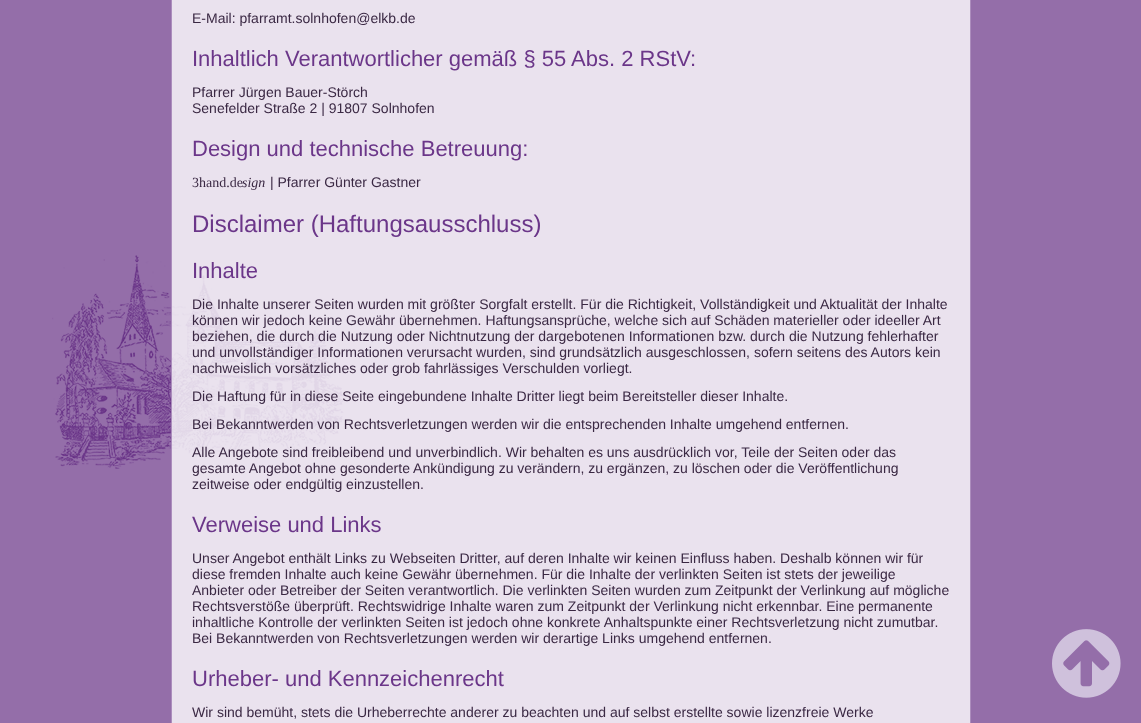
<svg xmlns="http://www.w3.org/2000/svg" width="1141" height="723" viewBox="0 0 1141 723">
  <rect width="100%" height="100%" fill="rgb(148,110,169)"/>
  <image x="52" y="255" width="295" height="214" href="pic1.png"/>
  <rect x="171" y="0" width="800" height="723" fill="rgba(255,255,255,0.8)"/>
  <rect x="171.5" y="-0.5" width="799" height="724" fill="none" stroke="rgba(156,120,176,0.8)"/>
  <text x="192" y="23" font-family="Liberation Sans" font-size="14" fill="rgb(58,40,67)">E-Mail: pfarramt.solnhofen@elkb.de</text>
  <text x="192" y="66" font-family="Liberation Sans" font-size="22" fill="rgb(107,54,137)">Inhaltlich Verantwortlicher gemäß § 55 Abs. 2 RStV:</text>
  <g font-family="Liberation Sans" font-size="14" fill="rgb(58,40,67)">
    <text>
      <tspan x="192" y="97">Pfarrer Jürgen Bauer-Störch</tspan>
      <tspan x="192" y="113">Senefelder Straße 2 | 91807 Solnhofen</tspan>
    </text>
  </g>
  <text x="192" y="156" font-family="Liberation Sans" font-size="22" fill="rgb(107,54,137)">Design und technische Betreuung:</text>
  <text x="192" y="187" font-family="Liberation Serif" font-size="14" fill="rgb(58,40,67)">3hand.de</text>
  <text x="242" y="187" font-family="Liberation Serif" font-size="14" font-style="italic" fill="rgb(58,40,67)">sign</text>
  <text x="270" y="187" font-family="Liberation Sans" font-size="14" fill="rgb(58,40,67)">| Pfarrer Günter Gastner</text>
  <text x="192" y="232" font-family="Liberation Sans" font-size="24" fill="rgb(107,54,137)">Disclaimer (Haftungsausschluss)</text>
  <text x="192" y="278" font-family="Liberation Sans" font-size="22" fill="rgb(107,54,137)">Inhalte</text>
  <g font-family="Liberation Sans" font-size="14" fill="rgb(58,40,67)">
    <text>
      <tspan x="192" y="309">Die Inhalte unserer Seiten wurden mit größter Sorgfalt erstellt. Für die Richtigkeit, Vollständigkeit und Aktualität der Inhalte</tspan>
      <tspan x="192" y="325">können wir jedoch keine Gewähr übernehmen. Haftungsansprüche, welche sich auf Schäden materieller oder ideeller Art</tspan>
      <tspan x="192" y="341">beziehen, die durch die Nutzung oder Nichtnutzung der dargebotenen Informationen bzw. durch die Nutzung fehlerhafter</tspan>
      <tspan x="192" y="357">und unvollständiger Informationen verursacht wurden, sind grundsätzlich ausgeschlossen, sofern seitens des Autors kein</tspan>
      <tspan x="192" y="373">nachweislich vorsätzliches oder grob fahrlässiges Verschulden vorliegt.</tspan>
    </text>
    <text x="192" y="401">Die Haftung für in diese Seite eingebundene Inhalte Dritter liegt beim Bereitsteller dieser Inhalte.</text>
    <text x="192" y="429">Bei Bekanntwerden von Rechtsverletzungen werden wir die entsprechenden Inhalte umgehend entfernen.</text>
    <text>
      <tspan x="192" y="457">Alle Angebote sind freibleibend und unverbindlich. Wir behalten es uns ausdrücklich vor, Teile der Seiten oder das</tspan>
      <tspan x="192" y="473">gesamte Angebot ohne gesonderte Ankündigung zu verändern, zu ergänzen, zu löschen oder die Veröffentlichung</tspan>
      <tspan x="192" y="489">zeitweise oder endgültig einzustellen.</tspan>
    </text>
  </g>
  <text x="192" y="532" font-family="Liberation Sans" font-size="22" fill="rgb(107,54,137)">Verweise und Links</text>
  <g font-family="Liberation Sans" font-size="14" fill="rgb(58,40,67)">
    <text>
      <tspan x="192" y="563">Unser Angebot enthält Links zu Webseiten Dritter, auf deren Inhalte wir keinen Einfluss haben. Deshalb können wir für</tspan>
      <tspan x="192" y="579">diese fremden Inhalte auch keine Gewähr übernehmen. Für die Inhalte der verlinkten Seiten ist stets der jeweilige</tspan>
      <tspan x="192" y="595">Anbieter oder Betreiber der Seiten verantwortlich. Die verlinkten Seiten wurden zum Zeitpunkt der Verlinkung auf mögliche</tspan>
      <tspan x="192" y="611">Rechtsverstöße überprüft. Rechtswidrige Inhalte waren zum Zeitpunkt der Verlinkung nicht erkennbar. Eine permanente</tspan>
      <tspan x="192" y="627">inhaltliche Kontrolle der verlinkten Seiten ist jedoch ohne konkrete Anhaltspunkte einer Rechtsverletzung nicht zumutbar.</tspan>
      <tspan x="192" y="643">Bei Bekanntwerden von Rechtsverletzungen werden wir derartige Links umgehend entfernen.</tspan>
    </text>
  </g>
  <text x="192" y="686" font-family="Liberation Sans" font-size="22" fill="rgb(107,54,137)">Urheber- und Kennzeichenrecht</text>
  <text x="192" y="717" font-family="Liberation Sans" font-size="14" fill="rgb(58,40,67)">Wir sind bemüht, stets die Urheberrechte anderer zu beachten und auf selbst erstellte sowie lizenzfreie Werke</text>
  <image x="1052" y="629" width="69" height="69" href="pic2.png"/>
</svg>
